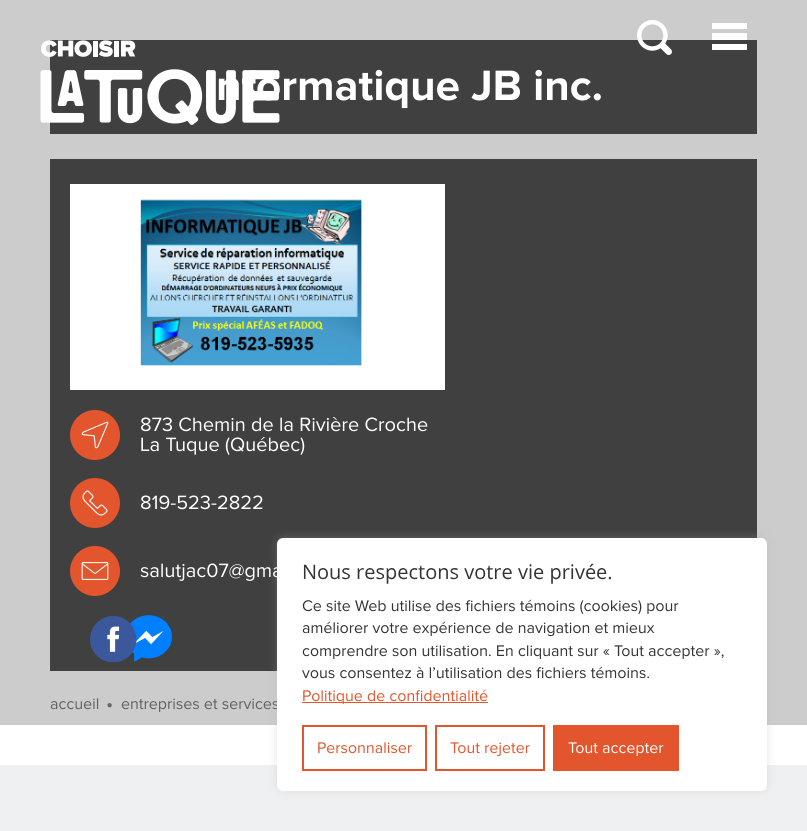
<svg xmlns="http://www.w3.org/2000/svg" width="807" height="831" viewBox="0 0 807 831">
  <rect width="100%" height="100%" fill="rgb(255,255,255)"/>
  <rect x="0" y="0" width="807" height="725" fill="rgb(204,204,204)"/>
  <rect x="50" y="40" width="707" height="94" fill="rgb(64,64,64)"/>
  <image x="206" y="69" width="395" height="40" href="pic1.png"/>
  <rect x="50" y="159" width="707" height="512" fill="rgb(64,64,64)"/>
  <image x="70" y="184" width="375" height="206" href="pic2.png"/>
  <image x="70" y="410" width="50" height="50" href="pic3.png"/>
  <image x="141" y="417" width="287" height="15" href="pic4.png"/>
  <image x="141" y="437" width="164" height="18" href="pic5.png"/>
  <image x="70" y="478" width="50" height="50" href="pic6.png"/>
  <image x="141" y="495" width="122" height="15" href="pic7.png"/>
  <image x="70" y="546" width="50" height="50" href="pic8.png"/>
  <image x="140" y="563" width="137" height="18" href="pic9.png"/>
  <image x="90" y="615" width="82" height="47" href="pic10.png"/>
  <image x="50" y="698" width="49" height="12" href="pic11.png"/>
  <image x="107" y="703" width="5" height="5" href="pic12.png"/>
  <image x="121" y="698" width="156" height="14" href="pic13.png"/>
  <rect x="0" y="765" width="807" height="66" fill="rgb(239,240,242)"/>
  <image x="40" y="40" width="240" height="85" href="pic14.png"/>
  <image x="637" y="20" width="35" height="35" href="pic15.png"/>
  <rect x="712" y="23" width="35" height="6" fill="rgb(255,255,255)"/>
  <rect x="712" y="33" width="35" height="7" fill="rgb(255,255,255)"/>
  <rect x="712" y="44" width="35" height="6" fill="rgb(255,255,255)"/>
  <rect x="277" y="537" width="490" height="253" rx="6" fill="rgba(172,171,171,0.3)" filter="blur(5px)"/>
  <rect x="277" y="538" width="490" height="253" rx="6" fill="rgb(255,255,255)"/>
  <text x="302" y="579" font-family="Open Sans" font-size="20" fill="rgb(52,52,52)">Nous respectons votre vie privée.</text>
  <image x="302" y="599" width="377" height="16" href="pic16.png"/>
  <image x="302" y="621" width="353" height="16" href="pic17.png"/>
  <image x="302" y="645" width="422" height="14" href="pic18.png"/>
  <image x="302" y="666" width="347" height="13" href="pic19.png"/>
  <rect x="302" y="702" width="186" height="1" fill="rgb(227,85,44)"/>
  <image x="303" y="689" width="185" height="15" href="pic20.png"/>
  <rect x="303" y="726" width="123" height="44" fill="none" stroke="rgb(227,85,44)" stroke-width="2"/>
  <image x="318" y="742" width="94" height="12" href="pic21.png"/>
  <rect x="436" y="726" width="108" height="44" fill="none" stroke="rgb(227,85,44)" stroke-width="2"/>
  <image x="450" y="742" width="80" height="15" href="pic22.png"/>
  <rect x="553" y="725" width="126" height="46" fill="rgb(227,85,44)"/>
  <image x="568" y="742" width="96" height="14" href="pic23.png"/>
</svg>
